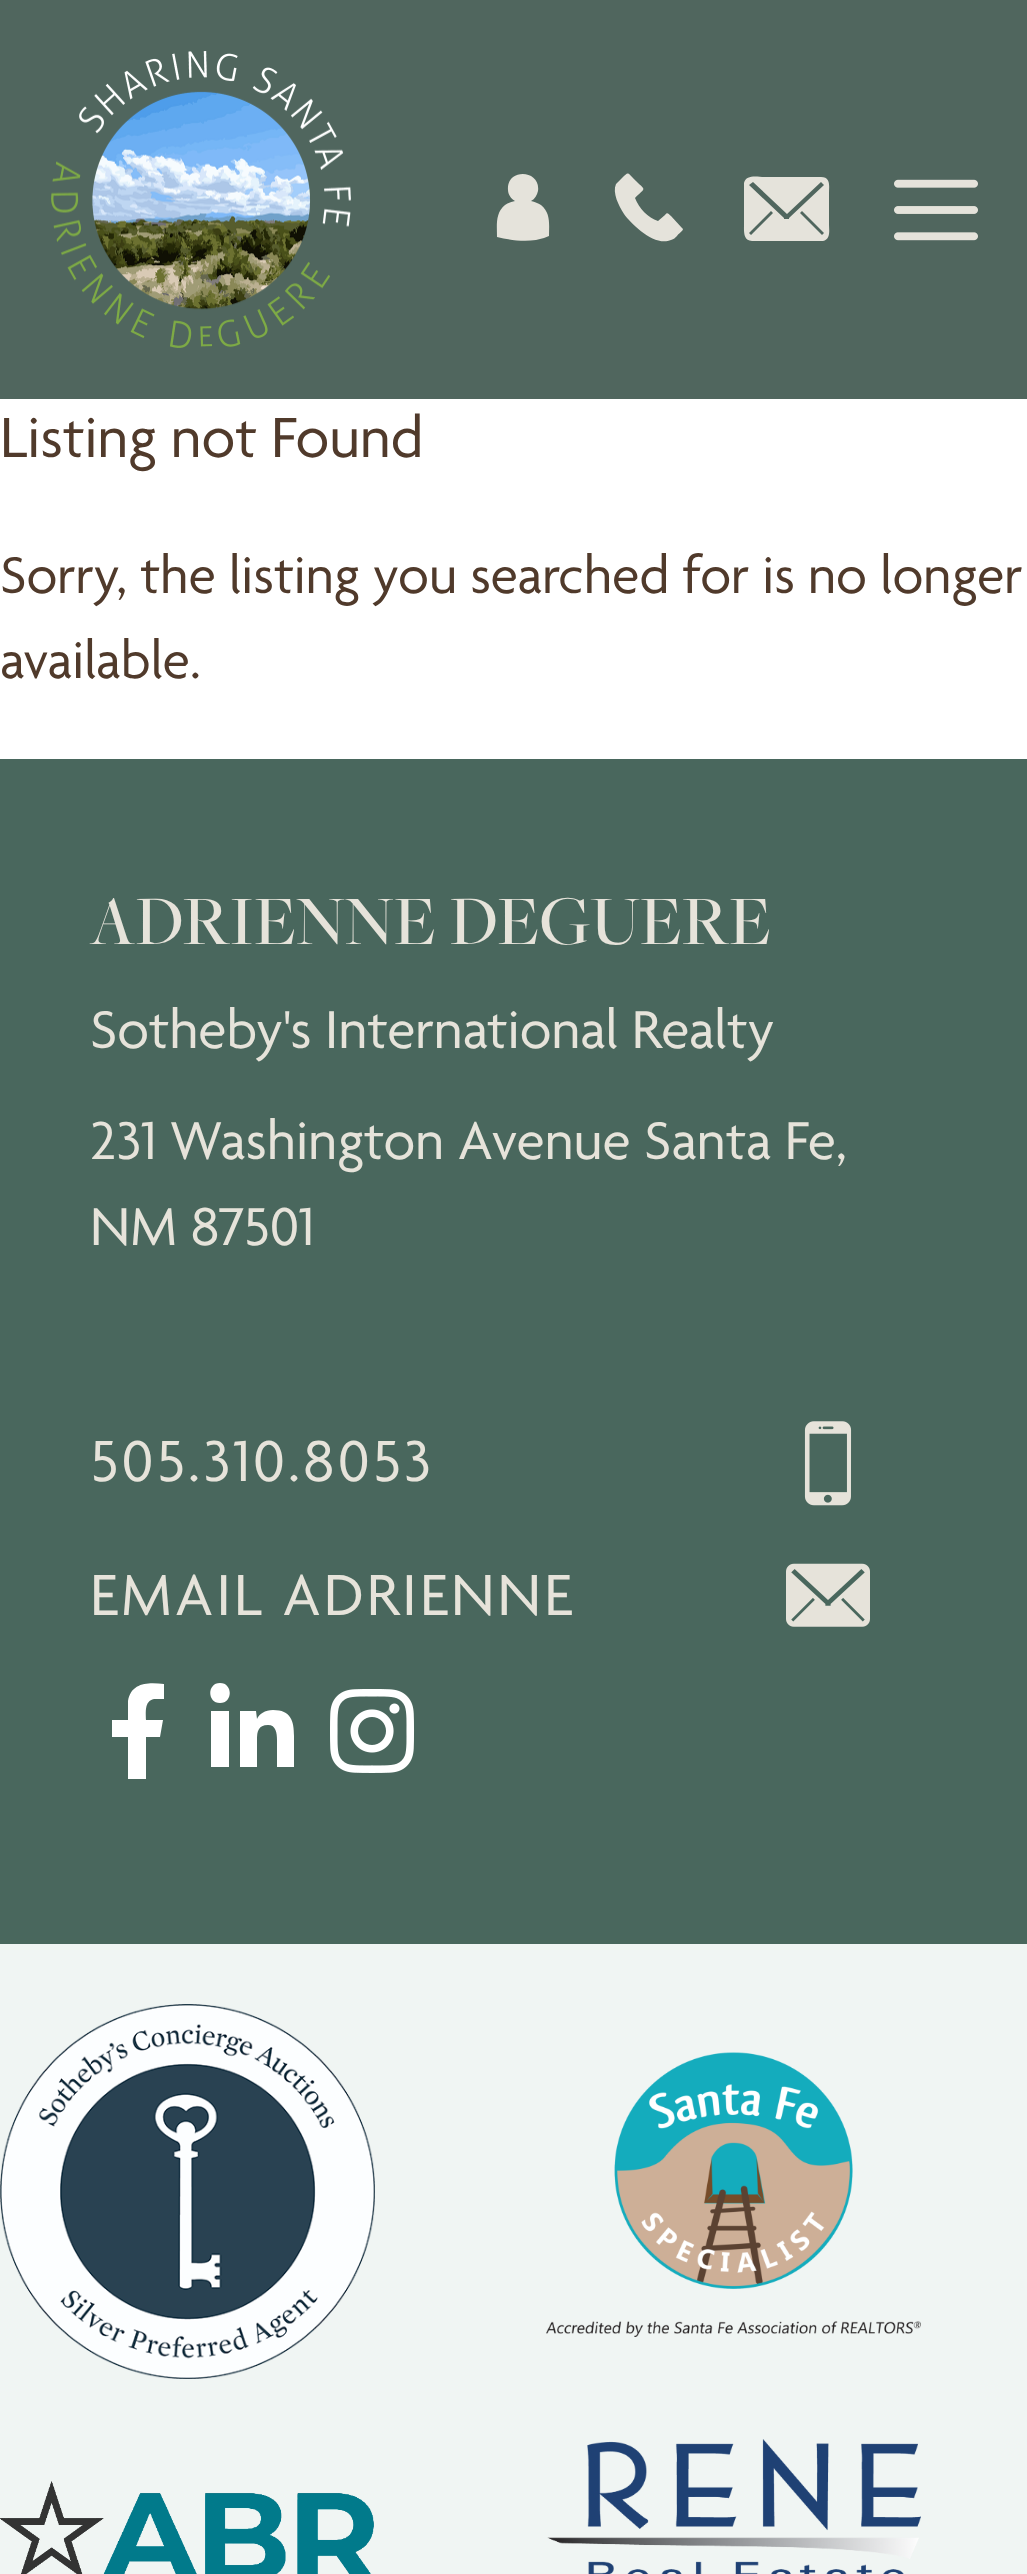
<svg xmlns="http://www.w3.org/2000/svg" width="1027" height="2574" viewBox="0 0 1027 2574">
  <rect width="100%" height="100%" fill="rgb(240,245,243)"/>
  <rect x="0" y="0" width="1027" height="399" fill="rgb(80,102,94)"/>
  <image x="51" y="51" width="300" height="297" href="pic1.png"/>
  <path d="M531 201C535 199 537 195 538 191C541 169 506 168 508 190C508 194 511 199 515 201C511 202 508 203 505 205C495 213 497 226 497 237C510 240 523 242 536 240L544 238L549 236C549 225 551 213 541 205C538 203 535 202 531 201Z" fill="rgb(229,227,219)"/>
  <path d="M682 228L671 216C668 213 667 212 665 215L658 221C648 218 639 208 635 198C646 187 646 191 636 181C627 172 629 171 622 178L616 184C612 193 619 206 624 214C632 225 655 247 671 240C674 239 675 238 677 236C678 234 683 231 683 229Z" fill="rgb(229,227,219)"/>
  <path d="M821 177H764C758 177 746 174 744 183V225C744 231 743 241 752 241H823C831 239 829 230 829 225V193C829 186 831 177 821 177ZM751 235L749 233L771 211L773 213ZM822 235L800 213L802 211L824 233ZM789 218V219H784V218L749 185L753 182L787 214L821 182L824 185Z" fill="rgb(229,227,219)"/>
  <image x="894" y="179" width="84" height="62" href="pic2.png"/>
  <rect x="0" y="399" width="1027" height="360" fill="rgb(255,255,255)"/>
  <text x="0" y="457" font-family="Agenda" font-size="61.25" fill="rgb(80,58,43)">Listing not Found</text>
  <g font-family="Agenda" font-size="56.1" fill="rgb(80,58,43)">
    <text>
      <tspan x="0" y="593">Sorry, the listing you searched for is no longer</tspan>
      <tspan x="0" y="678">available.</tspan>
    </text>
  </g>
  <rect x="0" y="759" width="1027" height="1185" fill="rgb(73,103,93)"/>
  <text x="90" y="944" font-family="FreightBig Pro" font-size="72" font-weight="500" fill="rgb(230,227,218)">ADRIENNE DEGUERE</text>
  <g font-family="Agenda" font-size="57.6" fill="rgb(230,227,218)">
    <text>
      <tspan x="90" y="1048">Sotheby's International Realty</tspan>
      <tspan x="90" y="1159">231 Washington Avenue Santa Fe,</tspan>
      <tspan x="90" y="1245">NM 87501</tspan>
    </text>
  </g>
  <text x="90" y="1481" font-family="Agenda" font-size="62.5" letter-spacing="3.1" fill="rgb(230,227,218)">505.310.8053</text>
  <image x="804" y="1421" width="48" height="85" href="pic3.png"/>
  <text x="90" y="1615" font-family="Agenda" font-size="62.5" letter-spacing="3.1" fill="rgb(230,227,218)">EMAIL ADRIENNE</text>
  <image x="786" y="1563" width="84" height="64" href="pic4.png"/>
  <path d="M160 1737L163 1720H146C146 1713 144 1701 154 1699H164V1684C149 1682 131 1682 128 1701V1720H112V1737H128V1779H146V1737Z" fill="rgb(255,255,255)"/>
  <path d="M229 1767H211V1711H229ZM220 1703C207 1703 207 1683 220 1683C233 1683 233 1703 220 1703ZM294 1767H277V1740C277 1733 276 1725 268 1725C258 1725 257 1732 257 1739V1767H240V1711H256L257 1719C259 1714 265 1710 273 1710C291 1710 294 1721 294 1736Z" fill="rgb(255,255,255)"/>
  <image x="330" y="1689" width="85" height="84" href="pic5.png"/>
  <image x="0" y="2004" width="375" height="375" href="pic6.png"/>
  <image x="546" y="2052" width="375" height="285" href="pic7.png"/>
  <image x="0" y="2481" width="374" height="93" href="pic8.png"/>
  <image x="547" y="2439" width="374" height="135" href="pic9.png"/>
</svg>
